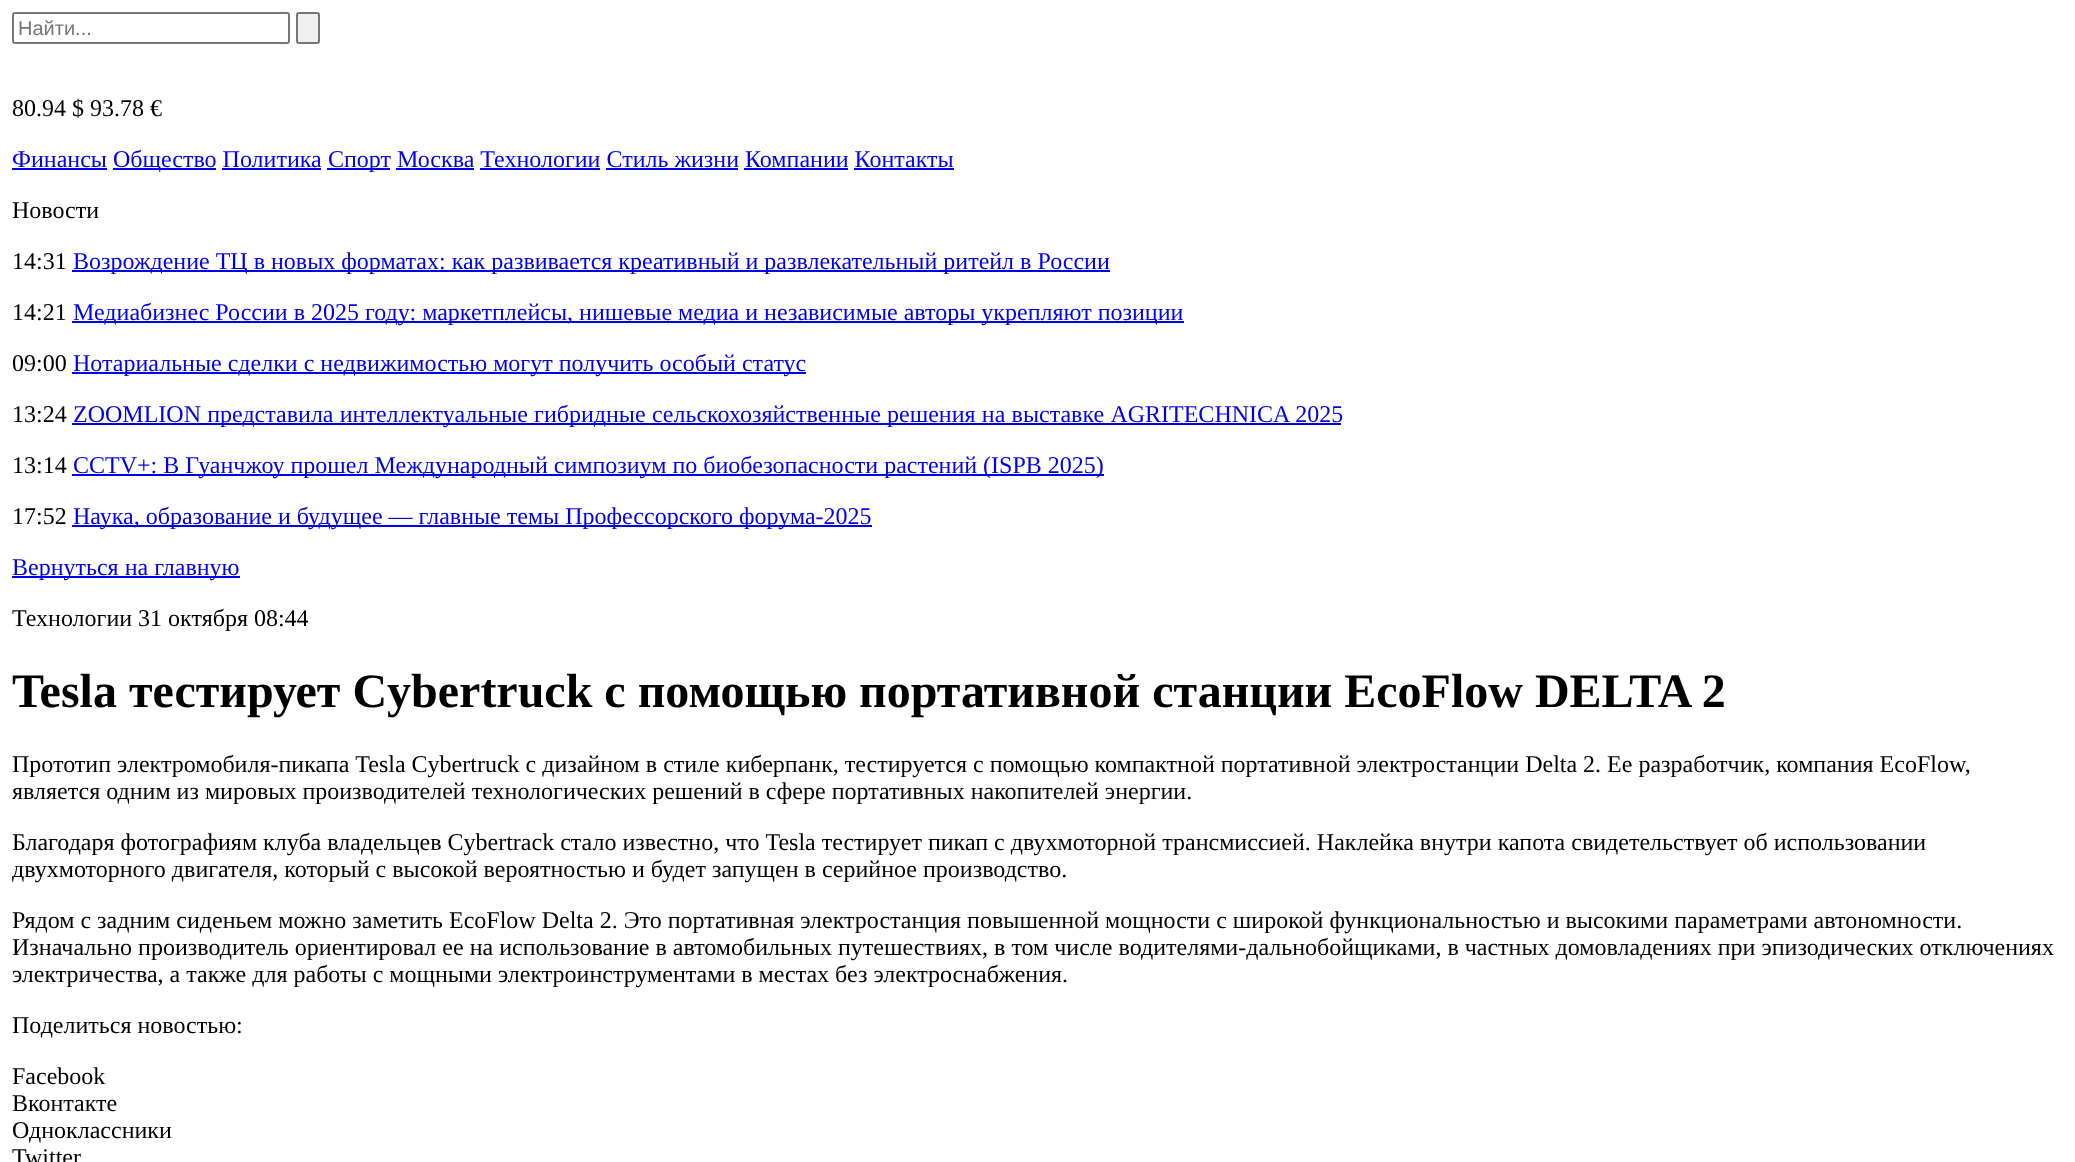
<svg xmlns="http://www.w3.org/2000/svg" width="2075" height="1162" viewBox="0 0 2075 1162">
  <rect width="100%" height="100%" fill="rgb(255,255,255)"/>
  <rect x="13" y="13" width="276" height="30" rx="2" fill="none" stroke="rgb(118,118,118)" stroke-width="2"/>
  <text x="18" y="35" font-family="Liberation Sans" font-size="20" fill="rgb(117,117,117)">Найти...</text>
  <rect x="297" y="13" width="22" height="30" rx="2" fill="rgb(239,239,239)" stroke="rgb(118,118,118)" stroke-width="2"/>
  <text x="12" y="116" font-family="Liberation Serif" font-size="24" fill="rgb(0,0,0)">80.94 $ 93.78 €</text>
  <text x="12" y="167" font-family="Liberation Serif" font-size="24" fill="rgb(0,0,238)">Финансы</text>
  <rect x="12" y="168" width="95" height="2" fill="rgb(0,0,238)"/>
  <rect x="113" y="168" width="103" height="2" fill="rgb(0,0,238)"/>
  <text x="113" y="167" font-family="Liberation Serif" font-size="24" fill="rgb(0,0,238)">Общество Политика</text>
  <rect x="327" y="168" width="63" height="2" fill="rgb(0,0,238)"/>
  <text x="328" y="167" font-family="Liberation Serif" font-size="24" fill="rgb(0,0,238)">Спорт Москва Технологии Стиль жизни Компании Контакты</text>
  <rect x="222" y="168" width="99" height="2" fill="rgb(0,0,238)"/>
  <rect x="396" y="168" width="78" height="2" fill="rgb(0,0,238)"/>
  <rect x="480" y="168" width="120" height="2" fill="rgb(0,0,238)"/>
  <rect x="606" y="168" width="132" height="2" fill="rgb(0,0,238)"/>
  <rect x="744" y="168" width="104" height="2" fill="rgb(0,0,238)"/>
  <rect x="854" y="168" width="100" height="2" fill="rgb(0,0,238)"/>
  <g font-family="Liberation Serif" font-size="24" fill="rgb(0,0,0)">
    <text x="12" y="218">Новости</text>
    <text x="12" y="269">14:31</text>
  </g>
  <rect x="72" y="270" width="1038" height="2" fill="rgb(0,0,238)"/>
  <text x="73" y="269" font-family="Liberation Serif" font-size="24" fill="rgb(0,0,238)">Возрождение ТЦ в новых форматах: как развивается креативный и развлекательный ритейл в России</text>
  <text x="12" y="320" font-family="Liberation Serif" font-size="24" fill="rgb(0,0,0)">14:21</text>
  <rect x="72" y="321" width="1112" height="2" fill="rgb(0,0,238)"/>
  <text x="73" y="320" font-family="Liberation Serif" font-size="24" fill="rgb(0,0,238)">Медиабизнес России в 2025 году: маркетплейсы, нишевые медиа и независимые авторы укрепляют позиции</text>
  <text x="12" y="371" font-family="Liberation Serif" font-size="24" fill="rgb(0,0,0)">09:00</text>
  <rect x="72" y="372" width="734" height="2" fill="rgb(0,0,238)"/>
  <text x="73" y="371" font-family="Liberation Serif" font-size="24" fill="rgb(0,0,238)">Нотариальные сделки с недвижимостью могут получить особый статус</text>
  <text x="12" y="422" font-family="Liberation Serif" font-size="24" fill="rgb(0,0,0)">13:24</text>
  <rect x="72" y="423" width="1269" height="2" fill="rgb(0,0,238)"/>
  <text x="73" y="422" word-spacing="0.25" font-family="Liberation Serif" font-size="24" fill="rgb(0,0,238)">ZOOMLION представила интеллектуальные гибридные сельскохозяйственные решения на выставке AGRITECHNICA 2025</text>
  <text x="12" y="473" font-family="Liberation Serif" font-size="24" fill="rgb(0,0,0)">13:14</text>
  <rect x="72" y="474" width="1032" height="2" fill="rgb(0,0,238)"/>
  <text x="73" y="473" font-family="Liberation Serif" font-size="24" fill="rgb(0,0,238)">CCTV+: В Гуанчжоу прошел Международный симпозиум по биобезопасности растений (ISPB 2025)</text>
  <text x="12" y="524" font-family="Liberation Serif" font-size="24" fill="rgb(0,0,0)">17:52</text>
  <rect x="72" y="525" width="800" height="2" fill="rgb(0,0,238)"/>
  <text x="73" y="524" font-family="Liberation Serif" font-size="24" fill="rgb(0,0,238)">Наука, образование и будущее — главные темы Профессорского форума-2025</text>
  <rect x="12" y="576" width="228" height="2" fill="rgb(0,0,238)"/>
  <text x="12" y="575" font-family="Liberation Serif" font-size="24" fill="rgb(0,0,238)">Вернуться на главную</text>
  <text x="12" y="626" font-family="Liberation Serif" font-size="24" fill="rgb(0,0,0)">Технологии 31 октября 08:44</text>
  <text x="12" y="707" font-family="Liberation Serif" font-size="48" font-weight="bold" fill="rgb(0,0,0)">Tesla тестирует Cybertruck с помощью портативной станции EcoFlow DELTA 2</text>
  <g font-family="Liberation Serif" font-size="24" fill="rgb(0,0,0)">
    <text>
      <tspan x="12" y="772">Прототип электромобиля-пикапа Tesla Cybertruck с дизайном в стиле киберпанк, тестируется с помощью компактной портативной электростанции Delta 2. Ее разработчик, компания EcoFlow,</tspan>
      <tspan x="12" y="799">является одним из мировых производителей технологических решений в сфере портативных накопителей энергии.</tspan>
    </text>
    <text>
      <tspan x="12" y="850">Благодаря фотографиям клуба владельцев Cybertrack стало известно, что Tesla тестирует пикап с двухмоторной трансмиссией. Наклейка внутри капота свидетельствует об использовании</tspan>
      <tspan x="12" y="877">двухмоторного двигателя, который с высокой вероятностью и будет запущен в серийное производство.</tspan>
    </text>
    <text>
      <tspan x="12" y="928">Рядом с задним сиденьем можно заметить EcoFlow Delta 2. Это портативная электростанция повышенной мощности с широкой функциональностью и высокими параметрами автономности.</tspan>
      <tspan x="12" y="955">Изначально производитель ориентировал ее на использование в автомобильных путешествиях, в том числе водителями-дальнобойщиками, в частных домовладениях при эпизодических отключениях</tspan>
      <tspan x="12" y="982">электричества, а также для работы с мощными электроинструментами в местах без электроснабжения.</tspan>
    </text>
    <text x="12" y="1033">Поделиться новостью:</text>
    <text>
      <tspan x="12" y="1084">Facebook</tspan>
      <tspan x="12" y="1111">Вконтакте</tspan>
      <tspan x="12" y="1138">Одноклассники</tspan>
      <tspan x="12" y="1165">Twitter</tspan>
    </text>
  </g>
</svg>
